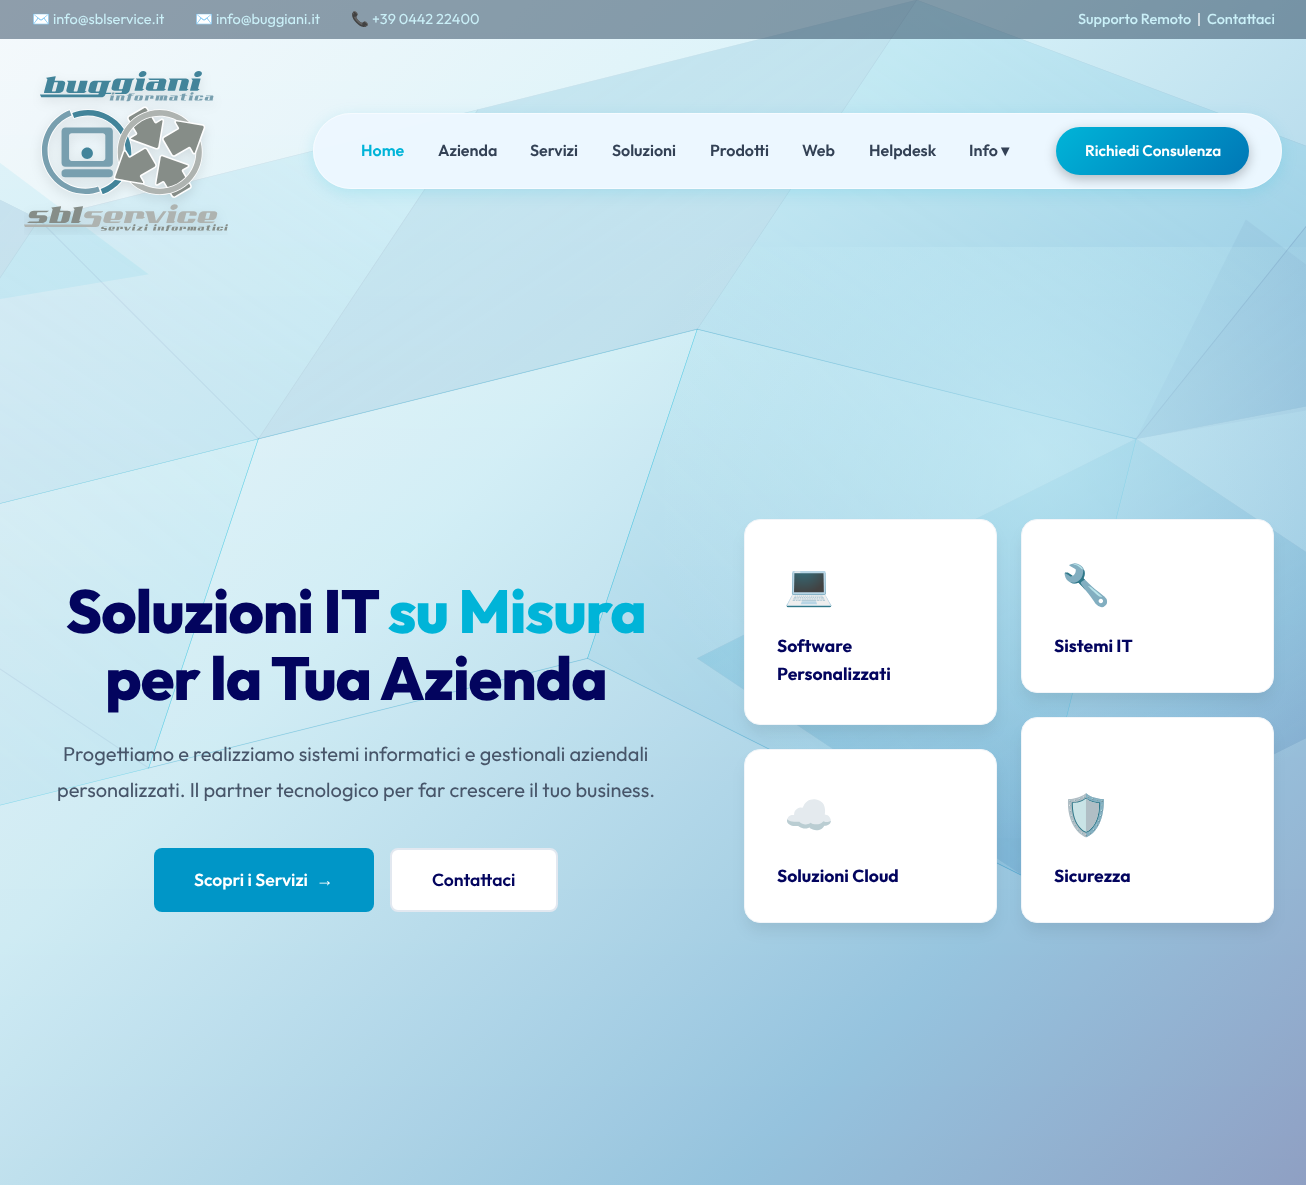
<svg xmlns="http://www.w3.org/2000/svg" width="1306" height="1185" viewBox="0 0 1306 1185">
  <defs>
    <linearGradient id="g1" gradientUnits="userSpaceOnUse" x1="-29" y1="29" x2="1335" y2="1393"><stop offset="0" stop-color="rgb(230,245,250)" stop-opacity="0.24"/><stop offset="0.35" stop-color="rgb(144,224,239)" stop-opacity="0.32"/><stop offset="0.7" stop-color="rgb(0,119,182)" stop-opacity="0.36"/><stop offset="1" stop-color="rgb(3,4,94)" stop-opacity="0.4"/></linearGradient>
    <clipPath id="clip1"><path d="M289 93H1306V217H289ZM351 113H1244C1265 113 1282 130 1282 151C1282 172 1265 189 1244 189H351C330 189 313 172 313 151C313 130 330 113 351 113Z" clip-rule="evenodd"/></clipPath>
    <linearGradient id="g2" gradientUnits="userSpaceOnUse" x1="1092" y1="91" x2="1213" y2="211"><stop offset="0" stop-color="rgb(0,180,216)"/><stop offset="1" stop-color="rgb(0,119,182)"/></linearGradient>
    <radialGradient id="g3" gradientUnits="userSpaceOnUse" cx="1037" cy="457" r="566"><stop offset="0" stop-color="rgb(202,240,248)" stop-opacity="0.6"/><stop offset="0.7" stop-color="rgb(202,240,248)" stop-opacity="0"/></radialGradient>
  </defs>
  <rect width="100%" height="100%" fill="rgb(255,255,255)"/>
  <image x="0" y="0" width="1306" height="1185" href="pic1.png"/>
  <rect x="0" y="0" width="1306" height="1185" fill="url(#g1)"/>
  <rect x="0" y="0" width="1306" height="39" fill="rgba(40,66,89,0.5)"/>
  <text x="32" y="24" font-family="Noto Color Emoji" font-size="14.5" fill="rgb(202,240,248)">✉️</text>
  <text x="53" y="24" font-family="Outfit" font-size="14.5" fill="rgb(202,240,248)">info@sblservice.it</text>
  <text x="195" y="24" font-family="Noto Color Emoji" font-size="14.5" fill="rgb(202,240,248)">✉️</text>
  <text x="216" y="24" font-family="Outfit" font-size="14.5" fill="rgb(202,240,248)">info@buggiani.it</text>
  <text x="351" y="24" font-family="Noto Color Emoji" font-size="14.5" fill="rgb(202,240,248)">📞</text>
  <text x="372" y="24" font-family="Outfit" font-size="14.5" fill="rgb(202,240,248)">+39 0442 22400</text>
  <text x="1078" y="24" font-family="Outfit" font-size="14.5" font-weight="500" fill="rgb(202,240,248)">Supporto Remoto</text>
  <text x="1197" y="24" font-family="Outfit" font-size="14.5" fill="rgb(255,255,255)">|</text>
  <text x="1207" y="24" font-family="Outfit" font-size="14.5" font-weight="500" fill="rgb(202,240,248)">Contattaci</text>
  <image x="24" y="71" width="204" height="164" href="pic2.png"/>
  <g clip-path="url(#clip1)">
    <rect x="313" y="117" width="969" height="76" rx="38" fill="rgba(0,180,216,0.15)" filter="blur(7.5px)"/>
  </g>
  <rect x="313" y="113" width="969" height="76" rx="38" fill="rgba(237,247,255,0.98)"/>
  <rect x="313.5" y="113.5" width="968" height="75" rx="37.5" fill="none" stroke="rgba(255,255,255,0.5)"/>
  <text x="361" y="156" font-family="Outfit" font-size="16" font-weight="600" fill="rgb(0,180,216)">Home</text>
  <g font-family="Outfit" font-size="16" font-weight="600" fill="rgb(51,65,85)">
    <text x="438" y="156">Azienda</text>
    <text x="530" y="156">Servizi</text>
    <text x="612" y="156">Soluzioni</text>
    <text x="710" y="156">Prodotti</text>
    <text x="802" y="156">Web</text>
    <text x="869" y="156">Helpdesk</text>
    <text x="969" y="156">Info</text>
  </g>
  <text x="1001" y="156" font-family="DejaVu Sans" font-size="16" font-weight="bold" fill="rgb(51,65,85)">▾</text>
  <rect x="1056" y="131" width="193" height="48" rx="24" fill="rgba(0,4,5,0.25)" filter="blur(6px)"/>
  <rect x="1056" y="127" width="193" height="48" rx="24" fill="url(#g2)"/>
  <text x="1085" y="156" font-family="Outfit" font-size="15.25" font-weight="600" fill="rgb(255,255,255)">Richiedi Consulenza</text>
  <rect x="664" y="247" width="642" height="591" fill="url(#g3)"/>
  <text x="66" y="633" font-family="Outfit" font-size="60.75" font-weight="800" letter-spacing="-1" fill="rgb(3,4,94)">Soluzioni IT</text>
  <text x="388" y="633" font-family="Outfit" font-size="60.75" font-weight="800" letter-spacing="-1" fill="rgb(0,180,216)">su Misura</text>
  <text x="105" y="700" font-family="Outfit" font-size="60.75" font-weight="800" letter-spacing="-1" fill="rgb(3,4,94)">per la Tua Azienda</text>
  <g font-family="Outfit" font-size="20" fill="rgb(71,85,105)">
    <text x="63" y="761">Progettiamo e realizziamo sistemi informatici e gestionali aziendali</text>
    <text x="57" y="797">personalizzati. Il partner tecnologico per far crescere il tuo business.</text>
  </g>
  <rect x="154" y="848" width="220" height="64" rx="8" fill="rgb(0,150,199)"/>
  <text x="194" y="886" font-family="Outfit" font-size="17.5" font-weight="600" fill="rgb(255,255,255)">Scopri i Servizi</text>
  <text x="316" y="886" font-family="Liberation Sans" font-size="17.5" font-weight="bold" fill="rgb(255,255,255)">→</text>
  <rect x="391" y="849" width="166" height="62" rx="7" fill="rgb(255,255,255)" stroke="rgb(226,232,240)" stroke-width="2"/>
  <text x="432" y="886" font-family="Outfit" font-size="17.5" font-weight="600" fill="rgb(3,4,94)">Contattaci</text>
  <rect x="747" y="532" width="247" height="200" rx="13" fill="rgba(0,0,0,0.08)" filter="blur(7.5px)"/>
  <rect x="744.5" y="519.5" width="252" height="205" rx="15.5" fill="rgb(255,255,255)" stroke="rgb(241,245,249)"/>
  <text x="784" y="599" font-family="Noto Color Emoji" font-size="40" fill="rgb(0,180,216)">💻</text>
  <g font-family="Outfit" font-size="17.5" font-weight="bold" fill="rgb(3,4,94)">
    <text>
      <tspan x="777" y="652">Software</tspan>
      <tspan x="777" y="680">Personalizzati</tspan>
    </text>
  </g>
  <rect x="1024" y="532" width="247" height="168" rx="13" fill="rgba(0,0,0,0.08)" filter="blur(7.5px)"/>
  <rect x="1021.5" y="519.5" width="252" height="173" rx="15.5" fill="rgb(255,255,255)" stroke="rgb(241,245,249)"/>
  <text x="1061" y="599" font-family="Noto Color Emoji" font-size="40" fill="rgb(0,180,216)">🔧</text>
  <text x="1054" y="652" font-family="Outfit" font-size="17.5" font-weight="bold" fill="rgb(3,4,94)">Sistemi IT</text>
  <rect x="747" y="762" width="247" height="168" rx="13" fill="rgba(0,0,0,0.08)" filter="blur(7.5px)"/>
  <rect x="744.5" y="749.5" width="252" height="173" rx="15.5" fill="rgb(255,255,255)" stroke="rgb(241,245,249)"/>
  <text x="784" y="829" font-family="Noto Color Emoji" font-size="40" fill="rgb(0,180,216)">☁️</text>
  <text x="777" y="882" font-family="Outfit" font-size="17.5" font-weight="bold" fill="rgb(3,4,94)">Soluzioni Cloud</text>
  <rect x="1024" y="730" width="247" height="200" rx="13" fill="rgba(0,0,0,0.08)" filter="blur(7.5px)"/>
  <rect x="1021.5" y="717.5" width="252" height="205" rx="15.5" fill="rgb(255,255,255)" stroke="rgb(241,245,249)"/>
  <text x="1061" y="829" font-family="Noto Color Emoji" font-size="40" fill="rgb(0,180,216)">🛡️</text>
  <text x="1054" y="882" font-family="Outfit" font-size="17.5" font-weight="bold" fill="rgb(3,4,94)">Sicurezza</text>
</svg>
